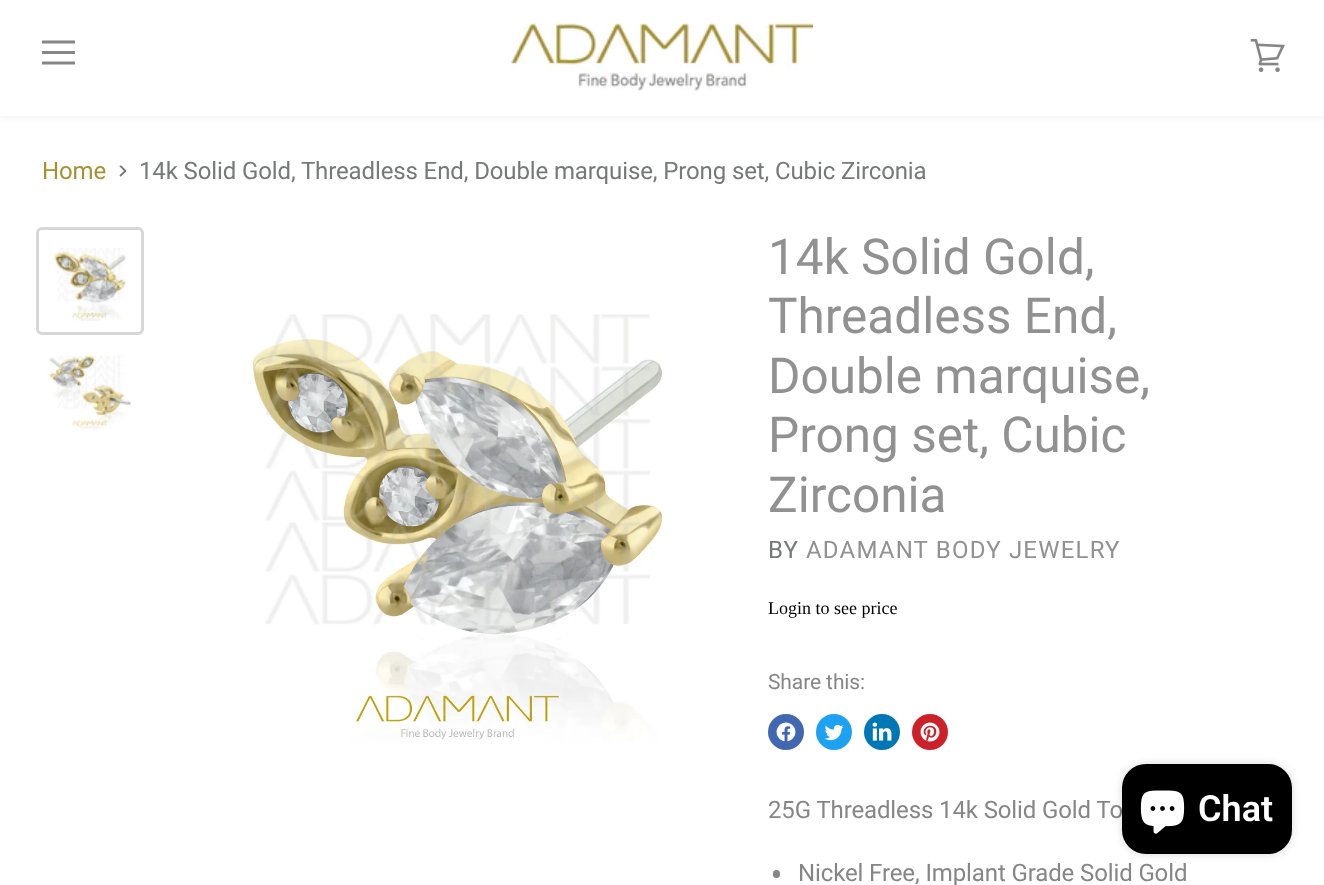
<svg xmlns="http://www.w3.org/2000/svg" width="1324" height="885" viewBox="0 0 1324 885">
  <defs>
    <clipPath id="clip1"><path d="M119 177.5V165.5H126.5V177.5Z"/></clipPath>
  </defs>
  <rect width="100%" height="100%" fill="rgb(255,255,255)"/>
  <rect x="0" y="2" width="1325" height="115" fill="rgba(188,187,188,0.25)" filter="blur(3px)"/>
  <rect x="0" y="0" width="1324" height="116" fill="rgb(255,255,255)"/>
  <path d="M73.5 42H43.5" fill="none" stroke="rgb(134,134,135)" stroke-width="3" stroke-linecap="square" stroke-linejoin="round"/>
  <rect x="42" y="51" width="33" height="3" fill="rgb(134,134,135)"/>
  <path d="M73.5 63H43.5" fill="none" stroke="rgb(134,134,135)" stroke-width="3" stroke-linecap="square" stroke-linejoin="round"/>
  <image x="511" y="22" width="302" height="69" href="pic1.png"/>
  <image x="1250" y="39" width="35" height="33" href="pic2.png"/>
  <text x="42" y="179" font-family="Roboto" font-size="24" letter-spacing="-0.12" fill="rgb(166,146,50)">Home</text>
  <g clip-path="url(#clip1)">
    <path d="M120 176L125.5 171L120 165.5" fill="none" stroke="rgb(117,121,119)" stroke-width="1.9"/>
  </g>
  <text x="139" y="179" font-family="Roboto" font-size="24" letter-spacing="-0.12" fill="rgb(117,121,119)">14k Solid Gold, Threadless End, Double marquise, Prong set, Cubic Zirconia</text>
  <rect x="37.5" y="228.5" width="105" height="105" rx="4.5" fill="none" stroke="rgb(215,215,215)" stroke-width="3"/>
  <image x="53" y="248" width="74" height="74" href="pic3.png"/>
  <image x="47" y="351" width="85" height="79" href="pic4.png"/>
  <image x="253" y="314" width="410" height="430" href="pic5.png"/>
  <g font-family="Roboto" font-size="49.5" fill="rgb(145,145,146)">
    <text>
      <tspan x="768" y="274">14k Solid Gold,</tspan>
      <tspan x="768" y="333">Threadless End,</tspan>
      <tspan x="768" y="393">Double marquise,</tspan>
      <tspan x="768" y="452">Prong set, Cubic</tspan>
      <tspan x="768" y="512">Zirconia</tspan>
    </text>
  </g>
  <text x="768" y="558" font-family="Roboto" font-size="24" letter-spacing="1.2" fill="rgb(117,121,119)">BY</text>
  <text x="806" y="558" font-family="Roboto" font-size="24" letter-spacing="1.2" fill="rgb(145,145,146)">ADAMANT BODY JEWELRY</text>
  <text x="768" y="614" font-family="Liberation Serif" font-size="18" fill="rgb(0,0,0)">Login to see price</text>
  <text x="768" y="689" font-family="Roboto" font-size="21" letter-spacing="-0.1" fill="rgb(134,134,135)">Share this:</text>
  <circle cx="786" cy="732" r="18" fill="rgb(66,103,177)"/>
  <image x="776" y="722" width="20" height="20" href="pic6.png"/>
  <circle cx="834" cy="732" r="18" fill="rgb(29,161,242)"/>
  <image x="824" y="724" width="20" height="17" href="pic7.png"/>
  <circle cx="882" cy="732" r="18" fill="rgb(0,119,181)"/>
  <image x="872" y="722" width="20" height="19" href="pic8.png"/>
  <circle cx="930" cy="732" r="18" fill="rgb(204,33,41)"/>
  <image x="920" y="722" width="20" height="20" href="pic9.png"/>
  <text x="768" y="818" font-family="Roboto" font-size="24" letter-spacing="-0.12" fill="rgb(134,134,135)">25G Threadless 14k Solid Gold To</text>
  <rect x="773" y="870" width="7" height="8" rx="3.5" fill="rgb(134,134,135)"/>
  <text x="798" y="881" font-family="Roboto" font-size="24" letter-spacing="-0.12" fill="rgb(134,134,135)">Nickel Free, Implant Grade Solid Gold</text>
  <rect x="1122" y="764" width="170" height="90" rx="24" fill="rgba(0,0,0,0.15)" filter="blur(4px)"/>
  <rect x="1122" y="764" width="170" height="90" rx="24" fill="rgb(0,0,0)"/>
  <image x="1140" y="790" width="45" height="44" href="pic10.png"/>
  <text x="1198" y="821" font-family="Roboto" font-size="36" font-weight="600" fill="rgb(255,255,255)">Chat</text>
</svg>
